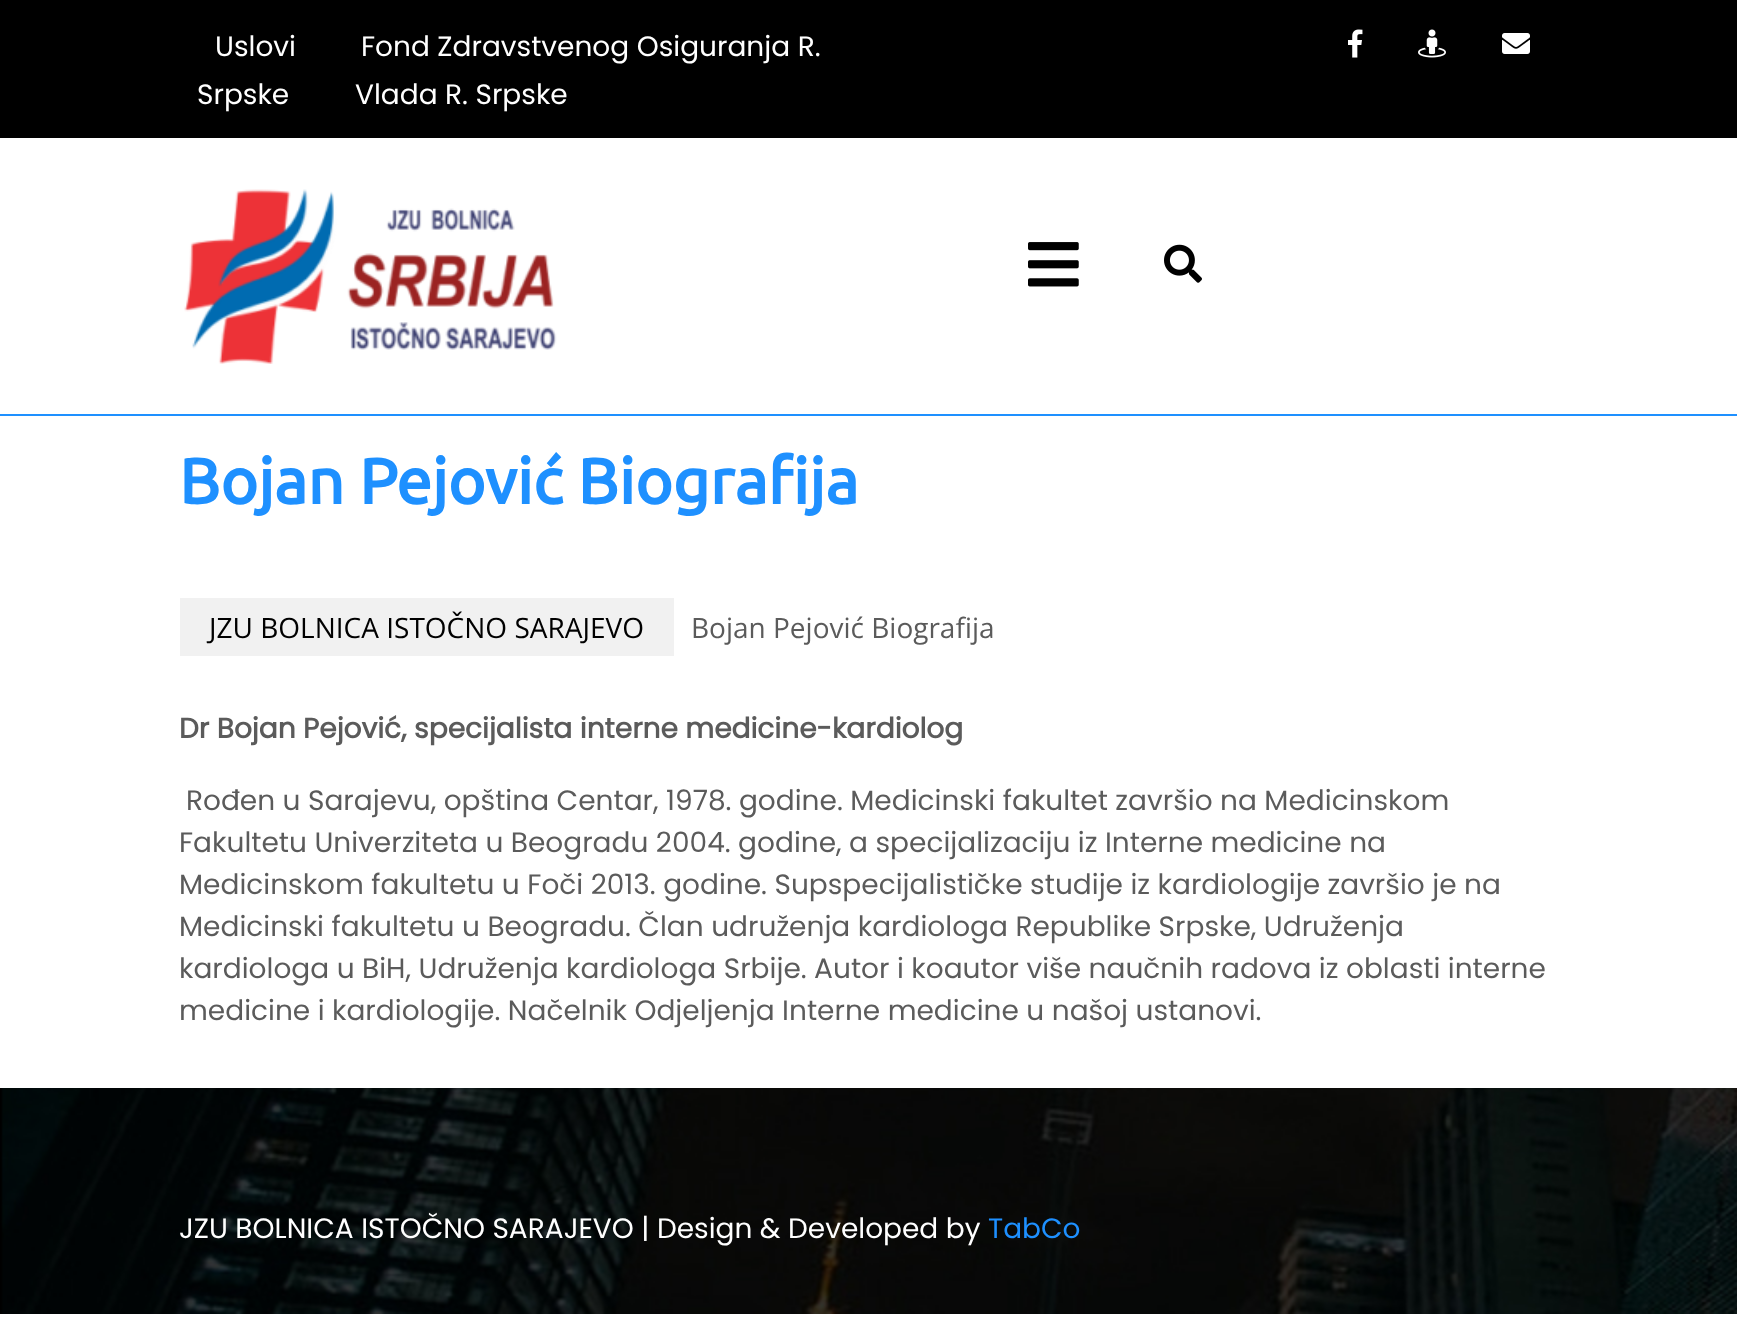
<svg xmlns="http://www.w3.org/2000/svg" width="1737" height="1342" viewBox="0 0 1737 1342">
  <rect width="100%" height="100%" fill="rgb(255,255,255)"/>
  <rect x="0" y="0" width="1737" height="138" fill="rgb(0,0,0)"/>
  <g font-family="Poppins" font-size="28" fill="rgb(255,255,255)">
    <text x="215" y="56">Uslovi</text>
    <text x="361" y="56">Fond Zdravstvenog Osiguranja R.</text>
    <text x="197" y="104">Srpske</text>
    <text x="355" y="104">Vlada R. Srpske</text>
  </g>
  <image x="1348" y="29" width="15" height="29" href="pic1.png"/>
  <image x="1418" y="29" width="28" height="29" href="pic2.png"/>
  <image x="1502" y="33" width="28" height="21" href="pic3.png"/>
  <rect x="0" y="414" width="1737" height="2" fill="rgb(30,144,255)"/>
  <image x="184" y="189" width="373" height="175" href="pic4.png"/>
  <image x="1028" y="242" width="51" height="45" href="pic5.png"/>
  <image x="1164" y="244" width="38" height="39" href="pic6.png"/>
  <text x="179" y="504" font-family="Ubuntu" font-size="64" font-weight="bold" fill="rgb(30,144,255)">Bojan Pejović Biografija</text>
  <rect x="180" y="598" width="494" height="58" fill="rgb(241,241,241)"/>
  <text x="209" y="638" font-family="Open Sans" font-size="28" fill="rgb(0,0,0)">JZU BOLNICA ISTOČNO SARAJEVO</text>
  <text x="691" y="638" font-family="Open Sans" font-size="28" fill="rgb(91,91,91)">Bojan Pejović Biografija</text>
  <text x="179" y="738" font-family="Poppins" font-size="28" font-weight="bold" fill="rgb(91,91,91)">Dr Bojan Pejović, specijalista interne medicine-kardiolog</text>
  <g font-family="Poppins" font-size="28" fill="rgb(91,91,91)">
    <text x="186" y="810">Rođen u Sarajevu, opština Centar, 1978. godine. Medicinski fakultet završio na Medicinskom</text>
    <text>
      <tspan x="179" y="852">Fakultetu Univerziteta u Beogradu 2004. godine, a specijalizaciju iz Interne medicine na</tspan>
      <tspan x="179" y="894">Medicinskom fakultetu u Foči 2013. godine. Supspecijalističke studije iz kardiologije završio je na</tspan>
      <tspan x="179" y="936">Medicinski fakultetu u Beogradu. Član udruženja kardiologa Republike Srpske, Udruženja</tspan>
      <tspan x="179" y="978">kardiologa u BiH, Udruženja kardiologa Srbije. Autor i koautor više naučnih radova iz oblasti interne</tspan>
      <tspan x="179" y="1020">medicine i kardiologije. Načelnik Odjeljenja Interne medicine u našoj ustanovi.</tspan>
    </text>
  </g>
  <image x="0" y="1088" width="1737" height="226" href="pic7.png"/>
  <text x="179" y="1238" font-family="Poppins" font-size="28" fill="rgb(255,255,255)">JZU BOLNICA ISTOČNO SARAJEVO | Design &amp; Developed by</text>
  <text x="988" y="1238" font-family="Poppins" font-size="28" fill="rgb(30,144,255)">TabCo</text>
</svg>
